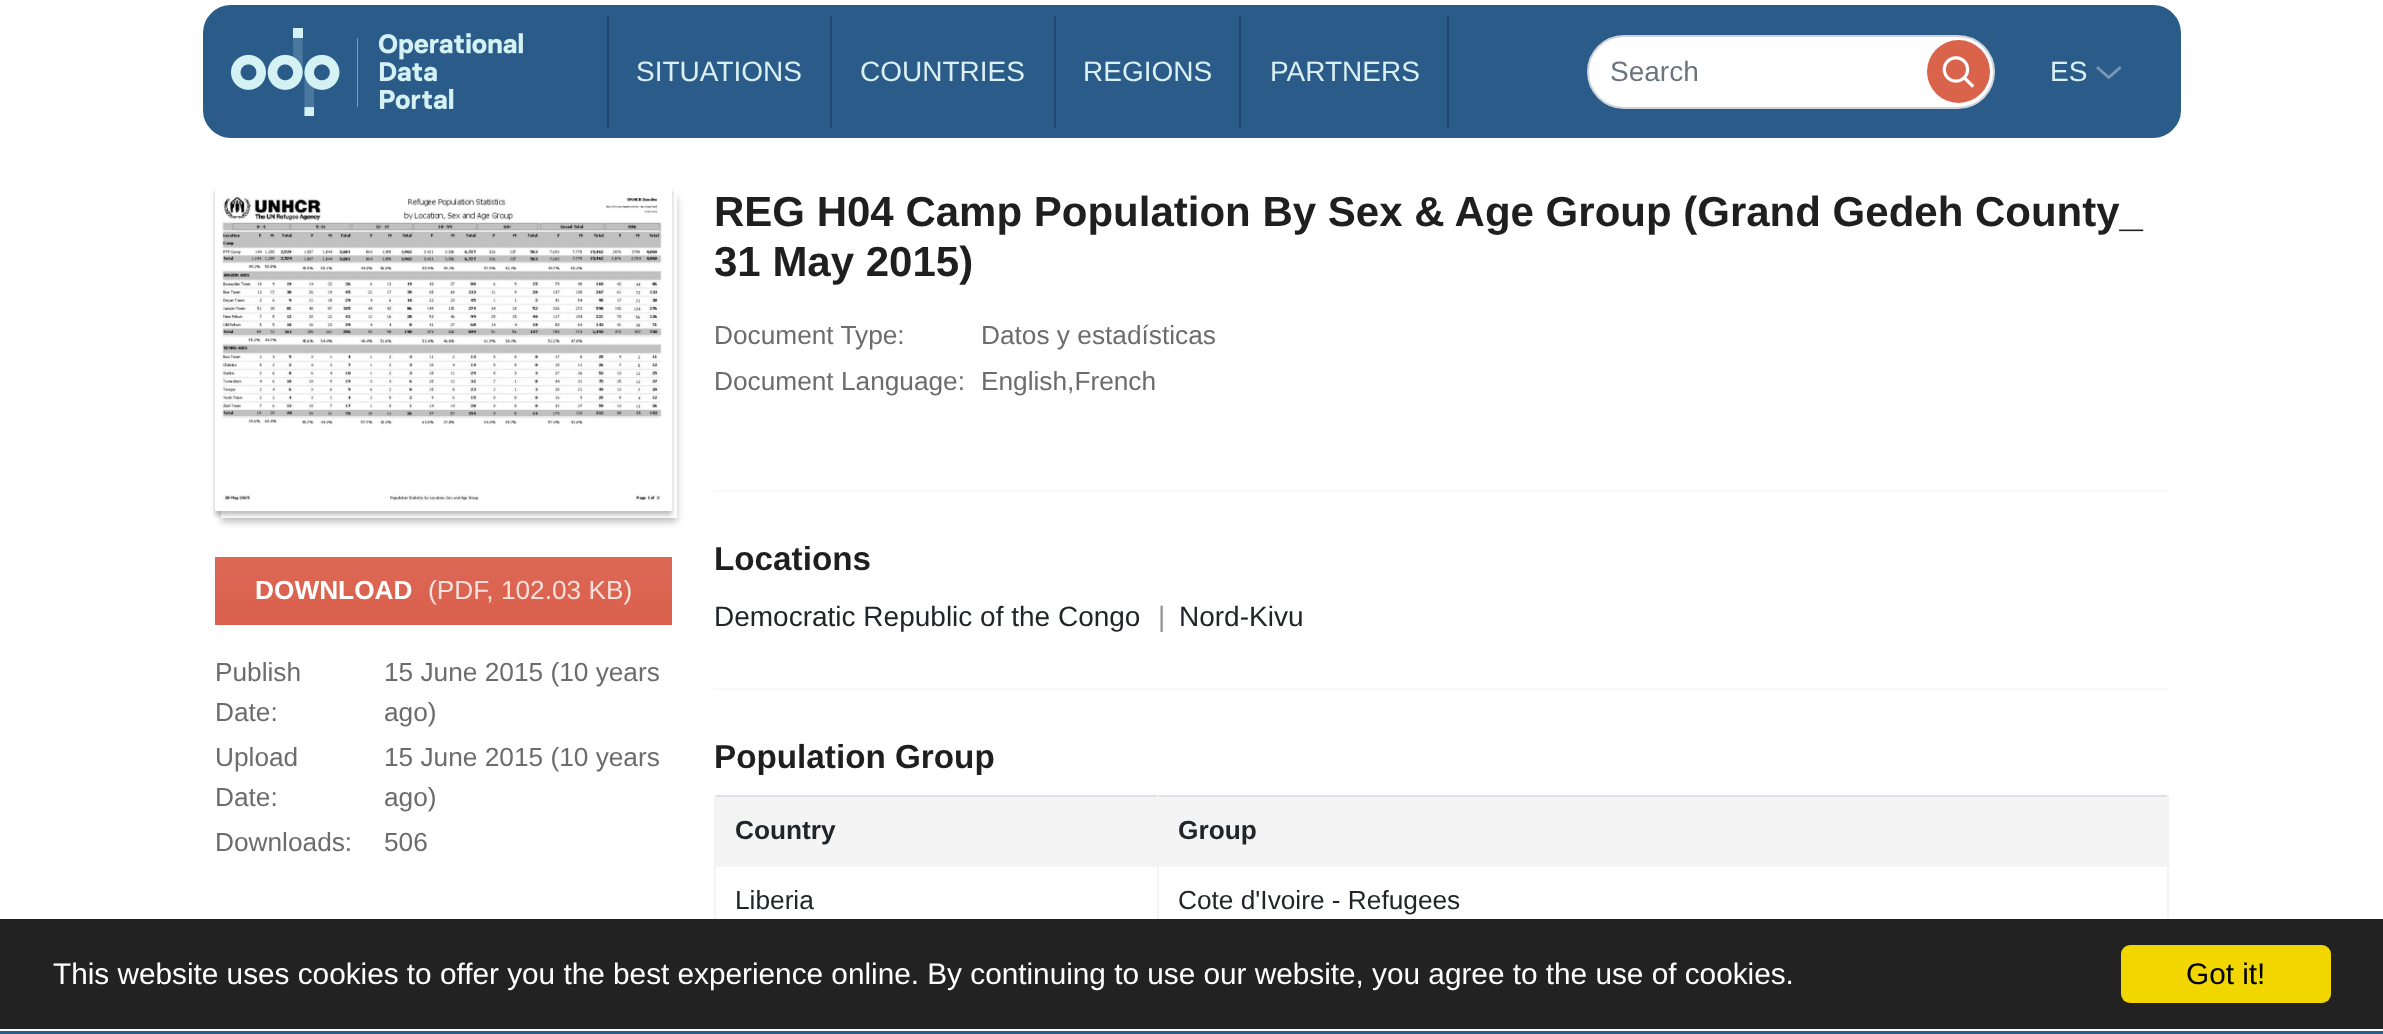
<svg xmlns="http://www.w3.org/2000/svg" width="2383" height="1034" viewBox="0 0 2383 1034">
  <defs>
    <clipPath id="clip1"><path d="M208 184H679V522H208ZM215 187H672V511H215Z" clip-rule="evenodd"/></clipPath>
    <linearGradient id="g1" gradientUnits="userSpaceOnUse" x1="444" y1="557" x2="444" y2="625"><stop offset="0" stop-color="rgb(220,104,85)"/><stop offset="1" stop-color="rgb(218,96,77)"/></linearGradient>
  </defs>
  <rect width="100%" height="100%" fill="rgb(255,255,255)"/>
  <rect x="205.5" y="7.5" width="1973" height="128" rx="25.5" fill="rgb(42,91,137)" stroke="rgb(42,91,137)" stroke-width="5"/>
  <image x="231" y="28" width="292" height="88" href="pic1.png"/>
  <rect x="607" y="16" width="2" height="112" fill="rgb(34,73,110)"/>
  <text x="636" y="81" font-family="Liberation Sans" font-size="28" fill="rgb(218,240,243)">SITUATIONS</text>
  <rect x="830" y="16" width="2" height="112" fill="rgb(34,73,110)"/>
  <text x="860" y="81" font-family="Liberation Sans" font-size="28" fill="rgb(218,240,243)">COUNTRIES</text>
  <rect x="1054" y="16" width="2" height="112" fill="rgb(34,73,110)"/>
  <text x="1083" y="81" font-family="Liberation Sans" font-size="28" fill="rgb(218,240,243)">REGIONS</text>
  <rect x="1447" y="16" width="2" height="112" fill="rgb(34,73,110)"/>
  <rect x="1239" y="16" width="2" height="112" fill="rgb(34,73,110)"/>
  <text x="1270" y="81" font-family="Liberation Sans" font-size="28" fill="rgb(218,240,243)">PARTNERS</text>
  <rect x="1588" y="36" width="406" height="72" rx="36" fill="rgb(255,255,255)" stroke="rgb(206,212,218)" stroke-width="2"/>
  <text x="1610" y="81" font-family="Liberation Sans" font-size="28" fill="rgb(108,117,125)">Search</text>
  <circle cx="1958.5" cy="71.5" r="31.5" fill="rgb(218,99,75)"/>
  <image x="1942" y="56" width="33" height="32" href="pic2.png"/>
  <text x="2050" y="81" font-family="Liberation Sans" font-size="28" fill="rgb(218,240,243)">ES</text>
  <image x="2096" y="66" width="26" height="14" href="pic3.png"/>
  <rect x="221" y="198" width="456" height="324" fill="rgba(0,0,0,0.25)" filter="blur(3.5px)"/>
  <rect x="221" y="194" width="456" height="324" fill="rgb(255,255,255)"/>
  <g clip-path="url(#clip1)">
    <rect x="215" y="191" width="457" height="324" fill="rgba(0,0,0,0.25)" filter="blur(2px)"/>
  </g>
  <image x="215" y="191" width="457" height="320" href="pic4.png"/>
  <rect x="215" y="557" width="457" height="68" fill="url(#g1)"/>
  <text x="255" y="599" font-family="Liberation Sans" font-size="26.25" font-weight="bold" fill="rgb(255,255,255)">DOWNLOAD</text>
  <text x="428" y="599" font-family="Liberation Sans" font-size="26.25" fill="rgb(248,224,220)">(PDF, 102.03 KB)</text>
  <g font-family="Liberation Sans" font-size="26.25" fill="rgb(108,108,108)">
    <text>
      <tspan x="215" y="681">Publish</tspan>
      <tspan x="215" y="721">Date:</tspan>
    </text>
    <text>
      <tspan x="384" y="681">15 June 2015 (10 years</tspan>
      <tspan x="384" y="721">ago)</tspan>
    </text>
    <text>
      <tspan x="215" y="766">Upload</tspan>
      <tspan x="215" y="806">Date:</tspan>
    </text>
    <text>
      <tspan x="384" y="766">15 June 2015 (10 years</tspan>
      <tspan x="384" y="806">ago)</tspan>
    </text>
    <text x="215" y="851">Downloads:</text>
    <text x="384" y="851">506</text>
  </g>
  <g font-family="Liberation Sans" font-size="42" font-weight="bold" fill="rgb(31,31,31)">
    <text>
      <tspan x="714" y="226">REG H04 Camp Population By Sex &amp; Age Group (Grand Gedeh County_</tspan>
      <tspan x="714" y="276">31 May 2015)</tspan>
    </text>
  </g>
  <g font-family="Liberation Sans" font-size="26.25" fill="rgb(108,108,108)">
    <text x="714" y="344">Document Type:</text>
    <text x="981" y="344">Datos y estadísticas</text>
    <text x="714" y="390">Document Language:</text>
    <text x="981" y="390">English,French</text>
  </g>
  <rect x="714" y="490" width="1454" height="2" fill="rgb(249,249,249)"/>
  <text x="714" y="570" font-family="Liberation Sans" font-size="33.25" font-weight="bold" fill="rgb(31,31,31)">Locations</text>
  <text x="714" y="626" font-family="Liberation Sans" font-size="28" fill="rgb(33,37,41)">Democratic Republic of the Congo</text>
  <text x="1158" y="626" font-family="Liberation Sans" font-size="28" fill="rgb(144,146,148)">|</text>
  <text x="1179" y="626" font-family="Liberation Sans" font-size="28" fill="rgb(33,37,41)">Nord-Kivu</text>
  <rect x="714" y="688" width="1454" height="2" fill="rgb(249,249,249)"/>
  <text x="714" y="768" font-family="Liberation Sans" font-size="33.25" font-weight="bold" fill="rgb(31,31,31)">Population Group</text>
  <rect x="714" y="795" width="1454" height="2" fill="rgb(222,226,230)"/>
  <rect x="716" y="797" width="441" height="68" fill="rgb(244,244,244)"/>
  <text x="735" y="839" font-family="Liberation Sans" font-size="26.25" font-weight="bold" fill="rgb(33,37,41)">Country</text>
  <rect x="1159" y="797" width="1008" height="66" fill="rgb(244,244,244)"/>
  <rect x="1157" y="865" width="2" height="54" fill="rgb(244,244,244)"/>
  <rect x="714" y="865" width="445" height="2" fill="rgb(244,244,244)"/>
  <rect x="1157" y="795" width="2" height="71" fill="rgb(244,244,244)"/>
  <rect x="2167" y="795" width="2" height="124" fill="rgb(244,244,244)"/>
  <rect x="1155" y="863" width="1015" height="4" fill="rgb(244,244,244)"/>
  <text x="1178" y="839" font-family="Liberation Sans" font-size="26.25" font-weight="bold" fill="rgb(33,37,41)">Group</text>
  <rect x="714" y="795" width="2" height="124" fill="rgb(244,244,244)"/>
  <g font-family="Liberation Sans" font-size="26.25" fill="rgb(33,37,41)">
    <text x="735" y="909">Liberia</text>
    <text x="1178" y="909">Cote d'Ivoire - Refugees</text>
  </g>
  <rect x="0" y="919" width="2383" height="110" fill="rgb(34,34,34)"/>
  <text x="53" y="984" font-family="Liberation Sans" font-size="29.75" fill="rgb(255,255,255)">This website uses cookies to offer you the best experience online. By continuing to use our website, you agree to the use of cookies.</text>
  <rect x="2121" y="945" width="210" height="58" rx="9" fill="rgb(241,214,0)"/>
  <text x="2186" y="984" font-family="Liberation Sans" font-size="29.75" fill="rgb(0,0,0)">Got it!</text>
  <rect x="0" y="1031" width="2383" height="3" fill="rgb(42,91,137)"/>
</svg>
